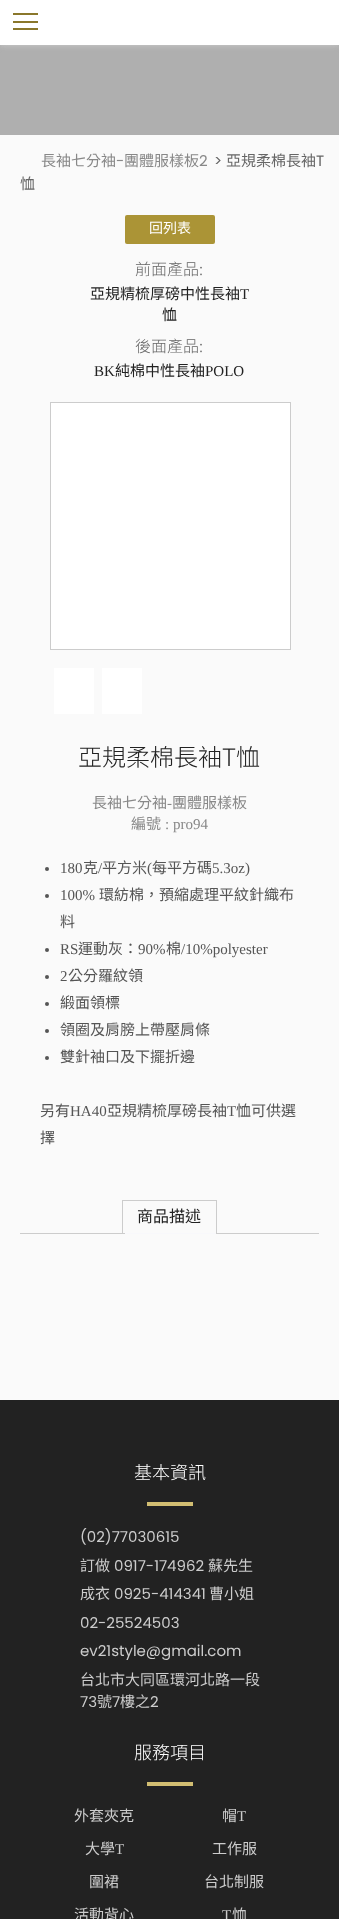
<svg xmlns="http://www.w3.org/2000/svg" width="339" height="1919" viewBox="0 0 339 1919">
  <rect width="100%" height="100%" fill="rgb(250,250,250)"/>
  <rect x="0" y="45" width="339" height="90" fill="rgb(175,175,175)"/>
  <rect x="0" y="0" width="339" height="45" fill="rgb(204,204,204)" filter="blur(3px)"/>
  <rect x="0" y="0" width="339" height="45" fill="rgb(255,255,255)"/>
  <rect x="13" y="13" width="25" height="2" fill="rgb(138,119,43)"/>
  <rect x="13" y="21" width="25" height="2" fill="rgb(138,119,43)"/>
  <rect x="13" y="28" width="25" height="2" fill="rgb(138,119,43)"/>
  <text x="41" y="166" font-family="Noto Sans CJK TC" font-size="15" fill="rgb(136,136,136)">長袖七分袖</text>
  <text x="116" y="166" font-family="Poppins" font-size="15" fill="rgb(136,136,136)">-</text>
  <text x="124" y="166" font-family="Noto Sans CJK TC" font-size="15" fill="rgb(136,136,136)">團體服樣板</text>
  <text x="199" y="166" font-family="Poppins" font-size="15" fill="rgb(136,136,136)">2</text>
  <text x="214" y="166" font-family="Poppins" font-size="15" fill="rgb(102,102,102)">&gt;</text>
  <text x="226" y="166" font-family="Noto Sans CJK TC" font-size="15" fill="rgb(102,102,102)">亞規柔棉長袖</text>
  <text x="316" y="166" font-family="Poppins" font-size="15" fill="rgb(102,102,102)">T</text>
  <text x="20" y="189" font-family="Noto Sans CJK TC" font-size="15" fill="rgb(102,102,102)">恤</text>
  <rect x="125" y="215" width="90" height="29" rx="2" fill="rgb(171,148,54)"/>
  <text x="149" y="233" font-family="Noto Sans CJK TC" font-size="14" fill="rgb(255,255,255)">回列表</text>
  <text x="135" y="275" font-family="Noto Sans TC" font-size="16" font-weight="100" fill="rgb(102,102,102)">前面產品:</text>
  <text x="90" y="299" font-family="Noto Sans CJK TC" font-size="15" fill="rgb(34,34,34)">亞規精梳厚磅中性長袖</text>
  <text x="240" y="299" font-family="Liberation Serif" font-size="15" fill="rgb(34,34,34)">T</text>
  <text x="162" y="320" font-family="Noto Sans CJK TC" font-size="15" fill="rgb(34,34,34)">恤</text>
  <text x="135" y="352" font-family="Noto Sans TC" font-size="16" font-weight="100" fill="rgb(102,102,102)">後面產品:</text>
  <text x="94" y="376" font-family="Liberation Serif" font-size="15" fill="rgb(34,34,34)">BK</text>
  <text x="115" y="376" font-family="Noto Sans CJK TC" font-size="15" fill="rgb(34,34,34)">純棉中性長袖</text>
  <text x="205" y="376" font-family="Liberation Serif" font-size="15" fill="rgb(34,34,34)">POLO</text>
  <rect x="50.5" y="402.5" width="240" height="247" fill="rgb(255,255,255)" stroke="rgb(204,204,204)"/>
  <rect x="54" y="668" width="40" height="46" fill="rgb(255,255,255)"/>
  <rect x="102" y="668" width="40" height="46" fill="rgb(255,255,255)"/>
  <text x="78" y="766" font-family="Noto Sans TC" font-size="24" font-weight="100" fill="rgb(34,34,34)">亞規柔棉長袖T恤</text>
  <text x="92" y="808" font-family="Noto Sans CJK TC" font-size="15" fill="rgb(136,136,136)">長袖七分袖</text>
  <text x="167" y="808" font-family="Liberation Serif" font-size="15" fill="rgb(136,136,136)">-</text>
  <g font-family="Noto Sans CJK TC" font-size="15" fill="rgb(136,136,136)">
    <text x="172" y="808">團體服樣板</text>
    <text x="131" y="829">編號</text>
  </g>
  <text x="165" y="829" font-family="Liberation Serif" font-size="15" fill="rgb(136,136,136)">: pro94</text>
  <circle cx="47" cy="869" r="2" fill="rgb(85,85,85)"/>
  <text x="60" y="873" font-family="Liberation Serif" font-size="15" fill="rgb(85,85,85)">180</text>
  <text x="83" y="873" font-family="Noto Sans CJK TC" font-size="15" fill="rgb(85,85,85)">克</text>
  <text x="98" y="873" font-family="Liberation Serif" font-size="15" fill="rgb(85,85,85)">/</text>
  <text x="102" y="873" font-family="Noto Sans CJK TC" font-size="15" fill="rgb(85,85,85)">平方米</text>
  <text x="147" y="873" font-family="Liberation Serif" font-size="15" fill="rgb(85,85,85)">(</text>
  <text x="152" y="873" font-family="Noto Sans CJK TC" font-size="15" fill="rgb(85,85,85)">每平方碼</text>
  <text x="212" y="873" font-family="Liberation Serif" font-size="15" fill="rgb(85,85,85)">5.3oz)</text>
  <circle cx="47" cy="896" r="2" fill="rgb(85,85,85)"/>
  <text x="60" y="900" font-family="Liberation Serif" font-size="15" fill="rgb(85,85,85)">100%</text>
  <g font-family="Noto Sans CJK TC" font-size="15" fill="rgb(85,85,85)">
    <text x="99" y="900">環紡棉，預縮處理平紋針織布</text>
    <text x="60" y="927">料</text>
  </g>
  <circle cx="47" cy="950" r="2" fill="rgb(85,85,85)"/>
  <text x="60" y="954" font-family="Liberation Serif" font-size="15" fill="rgb(85,85,85)">RS</text>
  <text x="78" y="954" font-family="Noto Sans CJK TC" font-size="15" fill="rgb(85,85,85)">運動灰：</text>
  <text x="138" y="954" font-family="Liberation Serif" font-size="15" fill="rgb(85,85,85)">90%</text>
  <text x="166" y="954" font-family="Noto Sans CJK TC" font-size="15" fill="rgb(85,85,85)">棉</text>
  <text x="181" y="954" font-family="Liberation Serif" font-size="15" fill="rgb(85,85,85)">/10%polyester</text>
  <circle cx="47" cy="977" r="2" fill="rgb(85,85,85)"/>
  <text x="60" y="981" font-family="Liberation Serif" font-size="15" fill="rgb(85,85,85)">2</text>
  <text x="68" y="981" font-family="Noto Sans CJK TC" font-size="15" fill="rgb(85,85,85)">公分羅紋領</text>
  <circle cx="47" cy="1004" r="2" fill="rgb(85,85,85)"/>
  <text x="60" y="1008" font-family="Noto Sans CJK TC" font-size="15" fill="rgb(85,85,85)">緞面領標</text>
  <circle cx="47" cy="1031" r="2" fill="rgb(85,85,85)"/>
  <text x="60" y="1035" font-family="Noto Sans CJK TC" font-size="15" fill="rgb(85,85,85)">領圈及肩膀上帶壓肩條</text>
  <circle cx="47" cy="1058" r="2" fill="rgb(85,85,85)"/>
  <g font-family="Noto Sans CJK TC" font-size="15" fill="rgb(85,85,85)">
    <text x="60" y="1062">雙針袖口及下擺折邊</text>
    <text x="40" y="1116">另有</text>
  </g>
  <text x="70" y="1116" font-family="Liberation Serif" font-size="15" fill="rgb(85,85,85)">HA40</text>
  <text x="107" y="1116" font-family="Noto Sans CJK TC" font-size="15" fill="rgb(85,85,85)">亞規精梳厚磅長袖</text>
  <text x="227" y="1116" font-family="Liberation Serif" font-size="15" fill="rgb(85,85,85)">T</text>
  <g font-family="Noto Sans CJK TC" font-size="15" fill="rgb(85,85,85)">
    <text x="236" y="1116">恤可供選</text>
    <text x="40" y="1143">擇</text>
  </g>
  <rect x="20" y="1233" width="299" height="1" fill="rgb(204,204,204)"/>
  <rect x="122.5" y="1200.5" width="94" height="33" fill="none" stroke="rgb(204,204,204)"/>
  <text x="137" y="1222" font-family="Noto Sans CJK TC" font-size="16" fill="rgb(34,34,34)">商品描述</text>
  <rect x="125" y="1233" width="91" height="1" fill="rgb(248,248,251)"/>
  <rect x="0" y="1400" width="339" height="519" fill="rgb(34,34,34)"/>
  <text x="134" y="1479" font-family="Noto Sans TC" font-size="18" font-weight="100" fill="rgb(255,255,255)">基本資訊</text>
  <rect x="147" y="1502" width="46" height="4" fill="rgb(210,190,114)"/>
  <text x="80" y="1542" font-family="Poppins" font-size="15" fill="rgb(204,204,204)">(02)77030615</text>
  <text x="80" y="1571" font-family="Noto Sans CJK TC" font-size="15" fill="rgb(204,204,204)">訂做</text>
  <text x="114" y="1571" font-family="Poppins" font-size="15" fill="rgb(204,204,204)">0917-174962</text>
  <g font-family="Noto Sans CJK TC" font-size="15" fill="rgb(204,204,204)">
    <text x="208" y="1571">蘇先生</text>
    <text x="80" y="1599">成衣</text>
  </g>
  <text x="114" y="1599" font-family="Poppins" font-size="15" fill="rgb(204,204,204)">0925-414341</text>
  <text x="209" y="1599" font-family="Noto Sans CJK TC" font-size="15" fill="rgb(204,204,204)">曹小姐</text>
  <g font-family="Poppins" font-size="15" fill="rgb(204,204,204)">
    <text>
      <tspan x="80" y="1628">02-25524503</tspan>
      <tspan x="80" y="1656">ev21style@gmail.com</tspan>
    </text>
  </g>
  <text x="80" y="1685" font-family="Noto Sans CJK TC" font-size="15" fill="rgb(204,204,204)">台北市大同區環河北路一段</text>
  <text x="80" y="1707" font-family="Poppins" font-size="15" fill="rgb(204,204,204)">73</text>
  <text x="97" y="1707" font-family="Noto Sans CJK TC" font-size="15" fill="rgb(204,204,204)">號</text>
  <text x="112" y="1707" font-family="Poppins" font-size="15" fill="rgb(204,204,204)">7</text>
  <text x="120" y="1707" font-family="Noto Sans CJK TC" font-size="15" fill="rgb(204,204,204)">樓之</text>
  <text x="150" y="1707" font-family="Poppins" font-size="15" fill="rgb(204,204,204)">2</text>
  <text x="134" y="1759" font-family="Noto Sans TC" font-size="18" font-weight="100" fill="rgb(255,255,255)">服務項目</text>
  <rect x="147" y="1782" width="46" height="4" fill="rgb(210,190,114)"/>
  <g font-family="Noto Sans CJK TC" font-size="15" fill="rgb(204,204,204)">
    <text x="74" y="1821">外套夾克</text>
    <text x="222" y="1821">帽</text>
  </g>
  <text x="237" y="1821" font-family="Liberation Serif" font-size="15" fill="rgb(204,204,204)">T</text>
  <text x="85" y="1854" font-family="Noto Sans CJK TC" font-size="15" fill="rgb(204,204,204)">大學</text>
  <text x="115" y="1854" font-family="Liberation Serif" font-size="15" fill="rgb(204,204,204)">T</text>
  <g font-family="Noto Sans CJK TC" font-size="15" fill="rgb(204,204,204)">
    <text x="212" y="1854">工作服</text>
    <text x="89" y="1887">圍裙</text>
    <text x="204" y="1887">台北制服</text>
    <text x="74" y="1920">活動背心</text>
  </g>
  <text x="222" y="1920" font-family="Liberation Serif" font-size="15" fill="rgb(204,204,204)">T</text>
  <text x="232" y="1920" font-family="Noto Sans CJK TC" font-size="15" fill="rgb(204,204,204)">恤</text>
</svg>
